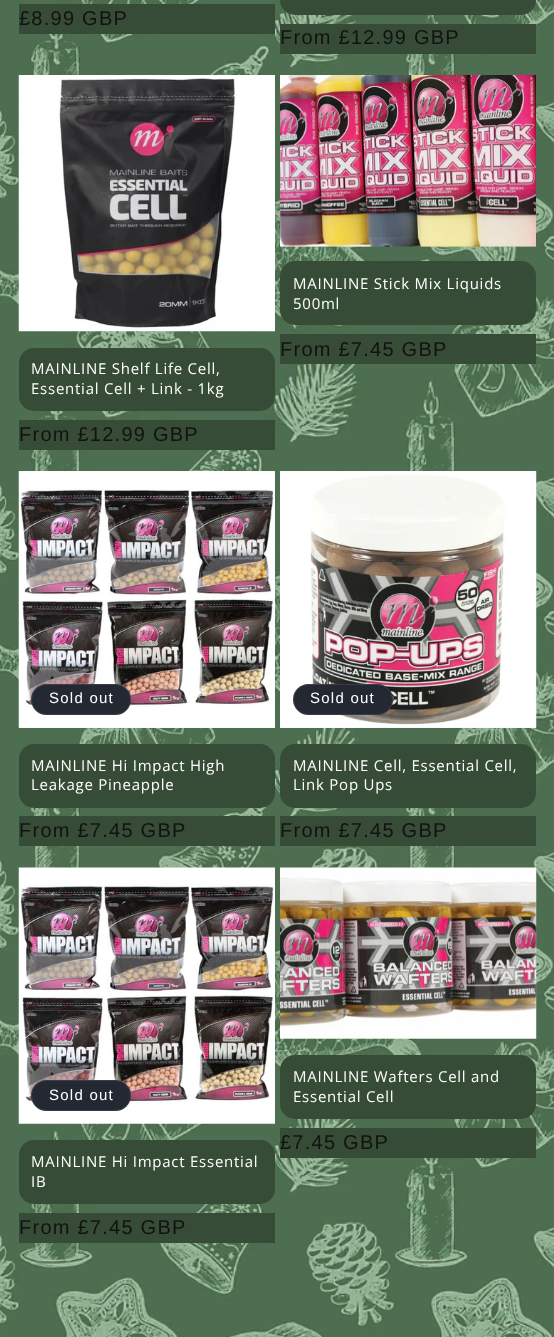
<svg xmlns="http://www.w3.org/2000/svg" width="554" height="1337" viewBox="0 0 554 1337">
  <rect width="100%" height="100%" fill="rgb(255,255,255)"/>
  <image x="0" y="0" width="554" height="1337" href="pic1.png"/>
  <rect x="19" y="4" width="256" height="30" fill="rgb(54,76,54)"/>
  <text x="19" y="25" font-family="Liberation Sans" font-size="20" letter-spacing="1.25" fill="rgb(18,18,18)">£8.99 GBP</text>
  <rect x="280" y="-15" width="256" height="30" rx="15" fill="rgb(54,76,54)"/>
  <rect x="280" y="24" width="256" height="30" fill="rgb(54,76,54)"/>
  <text x="280" y="44" font-family="Liberation Sans" font-size="20" letter-spacing="1.25" fill="rgb(18,18,18)">From £12.99 GBP</text>
  <image x="280" y="75" width="256" height="172" href="pic2.png"/>
  <rect x="280" y="261" width="256" height="64" rx="15" fill="rgb(54,76,54)"/>
  <g font-family="Open Sans" font-size="15" letter-spacing="0.75" fill="rgb(255,255,255)">
    <text>
      <tspan x="293" y="289">MAINLINE Stick Mix Liquids</tspan>
      <tspan x="293" y="309">500ml</tspan>
    </text>
  </g>
  <rect x="280" y="334" width="256" height="30" fill="rgb(54,76,54)"/>
  <text x="280" y="356" font-family="Liberation Sans" font-size="20" letter-spacing="1.25" fill="rgb(18,18,18)">From £7.45 GBP</text>
  <image x="18" y="75" width="257" height="257" href="pic3.png"/>
  <rect x="19" y="348" width="256" height="63" rx="15" fill="rgb(54,76,54)"/>
  <g font-family="Open Sans" font-size="15" letter-spacing="0.75" fill="rgb(255,255,255)">
    <text>
      <tspan x="31" y="374">MAINLINE Shelf Life Cell,</tspan>
      <tspan x="31" y="394">Essential Cell + Link - 1kg</tspan>
    </text>
  </g>
  <rect x="19" y="420" width="256" height="30" fill="rgb(54,76,54)"/>
  <text x="19" y="441" font-family="Liberation Sans" font-size="20" letter-spacing="1.25" fill="rgb(18,18,18)">From £12.99 GBP</text>
  <rect x="19" y="471" width="256" height="257" fill="rgb(243,243,243)"/>
  <image x="18" y="471" width="257" height="257" href="pic4.png"/>
  <rect x="31" y="684" width="100" height="31" rx="15.5" fill="rgb(36,40,51)"/>
  <rect x="31.5" y="684.5" width="99" height="30" rx="15" fill="none" stroke="rgba(255,255,255,0.1)"/>
  <text x="49" y="703" font-family="Liberation Sans" font-size="15" letter-spacing="1.25" fill="rgb(255,255,255)">Sold out</text>
  <rect x="19" y="744" width="256" height="64" rx="15" fill="rgb(54,76,54)"/>
  <g font-family="Open Sans" font-size="15" letter-spacing="0.75" fill="rgb(255,255,255)">
    <text>
      <tspan x="31" y="771">MAINLINE Hi Impact High</tspan>
      <tspan x="31" y="790">Leakage Pineapple</tspan>
    </text>
  </g>
  <rect x="19" y="816" width="256" height="30" fill="rgb(54,76,54)"/>
  <text x="19" y="837" font-family="Liberation Sans" font-size="20" letter-spacing="1.25" fill="rgb(18,18,18)">From £7.45 GBP</text>
  <rect x="280" y="471" width="256" height="257" fill="rgb(243,243,243)"/>
  <image x="280" y="471" width="257" height="257" href="pic5.png"/>
  <rect x="293" y="684" width="100" height="31" rx="15.5" fill="rgb(36,40,51)"/>
  <rect x="293.5" y="684.5" width="99" height="30" rx="15" fill="none" stroke="rgba(255,255,255,0.1)"/>
  <text x="310" y="703" font-family="Liberation Sans" font-size="15" letter-spacing="1.25" fill="rgb(255,255,255)">Sold out</text>
  <rect x="280" y="744" width="256" height="64" rx="15" fill="rgb(54,76,54)"/>
  <g font-family="Open Sans" font-size="15" letter-spacing="0.75" fill="rgb(255,255,255)">
    <text>
      <tspan x="293" y="771">MAINLINE Cell, Essential Cell,</tspan>
      <tspan x="293" y="790">Link Pop Ups</tspan>
    </text>
  </g>
  <rect x="280" y="816" width="256" height="30" fill="rgb(54,76,54)"/>
  <text x="280" y="837" font-family="Liberation Sans" font-size="20" letter-spacing="1.25" fill="rgb(18,18,18)">From £7.45 GBP</text>
  <image x="18" y="867" width="257" height="257" href="pic6.png"/>
  <rect x="31" y="1080" width="100" height="31" rx="15.5" fill="rgb(36,40,51)"/>
  <rect x="31.5" y="1080.5" width="99" height="30" rx="15" fill="none" stroke="rgba(255,255,255,0.1)"/>
  <text x="49" y="1100" font-family="Liberation Sans" font-size="15" letter-spacing="1.25" fill="rgb(255,255,255)">Sold out</text>
  <rect x="19" y="1140" width="256" height="64" rx="15" fill="rgb(54,76,54)"/>
  <g font-family="Open Sans" font-size="15" letter-spacing="0.75" fill="rgb(255,255,255)">
    <text>
      <tspan x="31" y="1167">MAINLINE Hi Impact Essential</tspan>
      <tspan x="31" y="1187">IB</tspan>
    </text>
  </g>
  <rect x="19" y="1213" width="256" height="30" fill="rgb(54,76,54)"/>
  <text x="19" y="1234" font-family="Liberation Sans" font-size="20" letter-spacing="1.25" fill="rgb(18,18,18)">From £7.45 GBP</text>
  <image x="280" y="867" width="257" height="172" href="pic7.png"/>
  <rect x="280" y="1055" width="256" height="64" rx="15" fill="rgb(54,76,54)"/>
  <g font-family="Open Sans" font-size="15" letter-spacing="0.75" fill="rgb(255,255,255)">
    <text>
      <tspan x="293" y="1082">MAINLINE Wafters Cell and</tspan>
      <tspan x="293" y="1102">Essential Cell</tspan>
    </text>
  </g>
  <rect x="280" y="1128" width="256" height="30" fill="rgb(54,76,54)"/>
  <text x="280" y="1149" font-family="Liberation Sans" font-size="20" letter-spacing="1.25" fill="rgb(18,18,18)">£7.45 GBP</text>
</svg>
